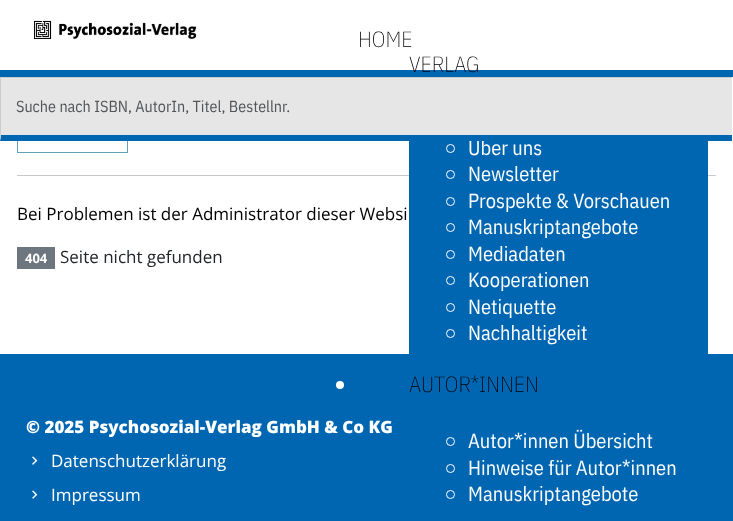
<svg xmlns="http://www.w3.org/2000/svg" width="733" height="521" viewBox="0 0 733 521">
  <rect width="100%" height="100%" fill="rgb(255,255,255)"/>
  <rect x="0" y="70" width="733" height="7" fill="rgb(0,102,177)"/>
  <image x="34" y="20" width="163" height="19" href="pic1.png"/>
  <rect x="17.5" y="106.5" width="110" height="46" fill="none" stroke="rgb(100,161,189)"/>
  <rect x="1" y="78" width="731" height="57" fill="rgb(230,230,230)"/>
  <rect x="0" y="77" width="732" height="1" fill="rgb(204,204,204)"/>
  <rect x="17" y="175" width="699" height="1" fill="rgb(200,201,202)"/>
  <rect x="409" y="141" width="299" height="213" fill="rgb(0,102,177)"/>
  <text x="468" y="155" font-family="IBM Plex Sans Condensed" font-size="20.4" fill="rgb(255,255,255)">Über uns</text>
  <path d="M732 141H0L1 135H732Z" fill="rgb(0,102,177)"/>
  <path d="M0 141V77L1 78V135Z" fill="rgb(204,204,204)"/>
  <text x="16" y="112" font-family="IBM Plex Sans Condensed" font-size="16" fill="rgb(83,86,89)">Suche nach ISBN, AutorIn, Titel, Bestellnr.</text>
  <g font-family="IBM Plex Sans Condensed" font-size="22" font-weight="200" fill="rgb(0,0,0)">
    <text x="358" y="47">HOME</text>
    <text x="409" y="72">VERLAG</text>
  </g>
  <circle cx="450.5" cy="148.5" r="4" fill="none" stroke="rgb(255,255,255)"/>
  <circle cx="450.5" cy="174.5" r="4" fill="none" stroke="rgb(255,255,255)"/>
  <text x="468" y="181" font-family="IBM Plex Sans Condensed" font-size="20.4" fill="rgb(255,255,255)">Newsletter</text>
  <circle cx="450.5" cy="201.5" r="4" fill="none" stroke="rgb(255,255,255)"/>
  <text x="468" y="208" font-family="IBM Plex Sans Condensed" font-size="20.4" fill="rgb(255,255,255)">Prospekte &amp; Vorschauen</text>
  <circle cx="450.5" cy="227.5" r="4" fill="none" stroke="rgb(255,255,255)"/>
  <text x="468" y="234" font-family="IBM Plex Sans Condensed" font-size="20.4" fill="rgb(255,255,255)">Manuskriptangebote</text>
  <circle cx="450.5" cy="254.5" r="4" fill="none" stroke="rgb(255,255,255)"/>
  <text x="468" y="261" font-family="IBM Plex Sans Condensed" font-size="20.4" fill="rgb(255,255,255)">Mediadaten</text>
  <circle cx="450.5" cy="280.5" r="4" fill="none" stroke="rgb(255,255,255)"/>
  <text x="468" y="287" font-family="IBM Plex Sans Condensed" font-size="20.4" fill="rgb(255,255,255)">Kooperationen</text>
  <circle cx="450.5" cy="307.5" r="4" fill="none" stroke="rgb(255,255,255)"/>
  <text x="468" y="314" font-family="IBM Plex Sans Condensed" font-size="20.4" fill="rgb(255,255,255)">Netiquette</text>
  <circle cx="450.5" cy="333.5" r="4" fill="none" stroke="rgb(255,255,255)"/>
  <text x="468" y="340" font-family="IBM Plex Sans Condensed" font-size="20.4" fill="rgb(255,255,255)">Nachhaltigkeit</text>
  <rect x="0" y="354" width="733" height="167" fill="rgb(0,102,177)"/>
  <circle cx="340" cy="385" r="4" fill="rgb(255,255,255)"/>
  <text x="409" y="392" font-family="IBM Plex Sans Condensed" font-size="22" font-weight="200" fill="rgb(0,0,0)">AUTOR*INNEN</text>
  <circle cx="450.5" cy="441.5" r="4" fill="none" stroke="rgb(255,255,255)"/>
  <text x="468" y="448" font-family="IBM Plex Sans Condensed" font-size="20.4" fill="rgb(255,255,255)">Autor*innen Übersicht</text>
  <circle cx="450.5" cy="468.5" r="4" fill="none" stroke="rgb(255,255,255)"/>
  <text x="468" y="475" font-family="IBM Plex Sans Condensed" font-size="20.4" fill="rgb(255,255,255)">Hinweise für Autor*innen</text>
  <circle cx="450.5" cy="494.5" r="4" fill="none" stroke="rgb(255,255,255)"/>
  <text x="468" y="501" font-family="IBM Plex Sans Condensed" font-size="20.4" fill="rgb(255,255,255)">Manuskriptangebote</text>
  <text x="17" y="220" font-family="Open Sans" font-size="17" fill="rgb(0,0,0)">Bei Problemen ist der Administrator dieser Websi</text>
  <rect x="17" y="247" width="38" height="22" fill="rgb(109,117,126)"/>
  <text x="25" y="263" font-family="Open Sans" font-size="13" font-weight="bold" fill="rgb(255,255,255)">404</text>
  <text x="60" y="263" font-family="Open Sans" font-size="17" fill="rgb(34,38,42)">Seite nicht gefunden</text>
  <text x="26" y="433" font-family="Open Sans" font-size="17" font-weight="800" fill="rgb(255,255,255)">© 2025 Psychosozial-Verlag GmbH &amp; Co KG</text>
  <image x="32" y="456" width="6" height="9" href="pic2.png"/>
  <text x="51" y="467" font-family="Open Sans" font-size="17" fill="rgb(255,255,255)">Datenschutzerklärung</text>
  <image x="32" y="490" width="6" height="9" href="pic2.png"/>
  <text x="51" y="501" font-family="Open Sans" font-size="17" fill="rgb(255,255,255)">Impressum</text>
</svg>
